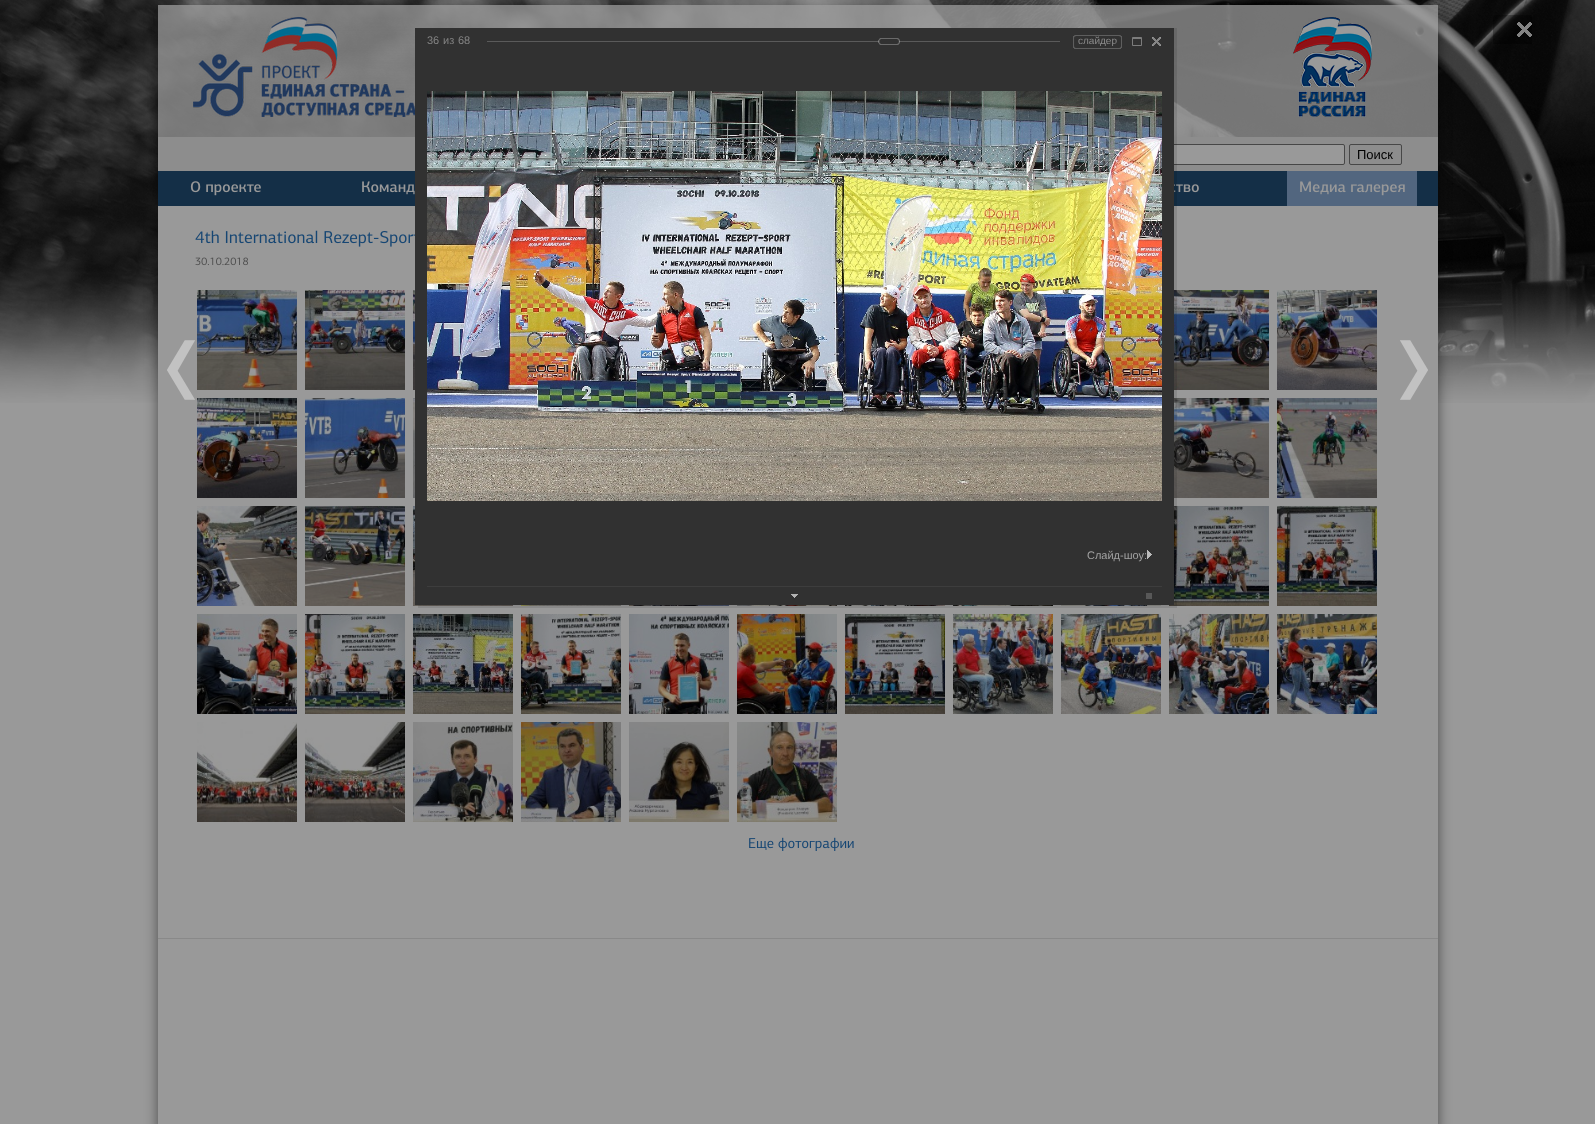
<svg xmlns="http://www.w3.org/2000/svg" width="1595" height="1124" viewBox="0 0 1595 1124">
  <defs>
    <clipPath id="clip1"><path d="M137 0H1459V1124H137ZM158 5H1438V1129H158Z" clip-rule="evenodd"/></clipPath>
  </defs>
  <rect width="100%" height="100%" fill="rgb(153,153,153)"/>
  <image x="0" y="0" width="1595" height="403" href="pic1.png"/>
  <g clip-path="url(#clip1)">
    <rect x="158" y="11" width="1280" height="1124" fill="rgba(0,0,0,0.5)" filter="blur(6.5px)"/>
  </g>
  <rect x="158" y="206" width="1280" height="197" fill="rgb(153,153,153)"/>
  <image x="167" y="340" width="28" height="60" href="pic2.png"/>
  <rect x="158" y="5" width="1280" height="132" fill="rgba(153,153,153,0.75)"/>
  <rect x="158" y="137" width="1280" height="34" fill="rgb(141,141,141)"/>
  <rect x="1036.5" y="144.5" width="308" height="20" rx="1.5" fill="rgb(153,153,153)" stroke="rgb(71,71,71)"/>
  <rect x="158" y="171" width="1280" height="35" fill="rgb(20,47,71)"/>
  <image x="1174" y="184" width="25" height="9" href="pic17.png"/>
  <image x="1174" y="290" width="95" height="100" href="pic24.png"/>
  <image x="1174" y="398" width="95" height="100" href="pic29.png"/>
  <image x="413" y="506" width="100" height="100" href="pic33.png"/>
  <image x="521" y="605" width="100" height="1" href="pic34.png"/>
  <image x="629" y="605" width="100" height="1" href="pic35.png"/>
  <image x="737" y="605" width="100" height="1" href="pic36.png"/>
  <image x="845" y="605" width="100" height="1" href="pic37.png"/>
  <image x="953" y="605" width="100" height="1" href="pic38.png"/>
  <image x="1061" y="605" width="100" height="1" href="pic39.png"/>
  <image x="1169" y="506" width="100" height="100" href="pic40.png"/>
  <rect x="418" y="28" width="759" height="580" fill="rgba(0,0,0,0.1)"/>
  <rect x="415" y="28" width="759" height="577" fill="rgb(49,49,49)"/>
  <g font-family="Liberation Sans" font-size="11" fill="rgb(131,131,131)">
    <text x="427" y="44">36</text>
    <text x="443" y="44">из</text>
    <text x="458" y="44">68</text>
  </g>
  <rect x="487" y="41" width="573" height="1" fill="rgb(90,90,90)"/>
  <image x="878" y="38" width="22" height="7" href="pic3.png"/>
  <image x="1073" y="35" width="46" height="14" href="pic4.png"/>
  <text x="1078" y="44" font-family="Liberation Sans" font-size="10" fill="rgb(140,140,140)">слайдер</text>
  <image x="1119" y="35" width="3" height="14" href="pic5.png"/>
  <image x="1132" y="37" width="10" height="9" href="pic6.png"/>
  <image x="1152" y="37" width="9" height="9" href="pic7.png"/>
  <image x="427" y="91" width="735" height="410" href="pic8.png"/>
  <rect x="427" y="586" width="735" height="1" fill="rgb(61,61,61)"/>
  <text x="1087" y="559" font-family="Liberation Sans" font-size="11" fill="rgb(162,162,162)">Слайд-шоу:</text>
  <image x="1147" y="550" width="5" height="9" href="pic9.png"/>
  <image x="791" y="594" width="7" height="4" href="pic10.png"/>
  <rect x="1146" y="593" width="6" height="6" fill="rgb(88,88,88)"/>
  <image x="1493" y="15" width="39" height="29" href="pic11.png"/>
  <image x="1400" y="340" width="28" height="60" href="pic12.png"/>
  <image x="193" y="17" width="222" height="100" href="pic13.png"/>
  <image x="1293" y="17" width="79" height="100" href="pic14.png"/>
  <rect x="1349.5" y="144.5" width="52" height="20" rx="1.5" fill="none" stroke="rgb(71,71,71)"/>
  <text x="1357" y="159" font-family="Liberation Sans" font-size="13" fill="rgb(0,0,0)">Поиск</text>
  <image x="190" y="181" width="71" height="15" href="pic15.png"/>
  <image x="362" y="181" width="53" height="14" href="pic16.png"/>
  <rect x="1287" y="171" width="130" height="35" fill="rgb(82,102,127)"/>
  <image x="1300" y="181" width="105" height="15" href="pic18.png"/>
  <image x="195" y="230" width="220" height="17" href="pic19.png"/>
  <image x="195" y="257" width="53" height="9" href="pic20.png"/>
  <image x="197" y="290" width="100" height="100" href="pic21.png"/>
  <image x="305" y="290" width="100" height="100" href="pic22.png"/>
  <image x="413" y="290" width="2" height="100" href="pic23.png"/>
  <image x="1277" y="290" width="100" height="100" href="pic25.png"/>
  <image x="197" y="398" width="100" height="100" href="pic26.png"/>
  <image x="305" y="398" width="100" height="100" href="pic27.png"/>
  <image x="413" y="398" width="2" height="100" href="pic28.png"/>
  <image x="1277" y="398" width="100" height="100" href="pic30.png"/>
  <image x="197" y="506" width="100" height="100" href="pic31.png"/>
  <image x="305" y="506" width="100" height="100" href="pic32.png"/>
  <image x="1277" y="506" width="100" height="100" href="pic41.png"/>
  <image x="197" y="614" width="100" height="100" href="pic42.png"/>
  <image x="305" y="614" width="100" height="100" href="pic43.png"/>
  <image x="413" y="614" width="100" height="100" href="pic44.png"/>
  <image x="521" y="614" width="100" height="100" href="pic45.png"/>
  <image x="629" y="614" width="100" height="100" href="pic46.png"/>
  <image x="737" y="614" width="100" height="100" href="pic47.png"/>
  <image x="845" y="614" width="100" height="100" href="pic48.png"/>
  <image x="953" y="614" width="100" height="100" href="pic49.png"/>
  <image x="1061" y="614" width="100" height="100" href="pic50.png"/>
  <image x="1169" y="614" width="100" height="100" href="pic51.png"/>
  <image x="1277" y="614" width="100" height="100" href="pic52.png"/>
  <image x="197" y="722" width="100" height="100" href="pic53.png"/>
  <image x="305" y="722" width="100" height="100" href="pic54.png"/>
  <image x="413" y="722" width="100" height="100" href="pic55.png"/>
  <image x="521" y="722" width="100" height="100" href="pic56.png"/>
  <image x="629" y="722" width="100" height="100" href="pic57.png"/>
  <image x="737" y="722" width="100" height="100" href="pic58.png"/>
  <image x="749" y="837" width="105" height="14" href="pic59.png"/>
  <rect x="158" y="938" width="1280" height="1" fill="rgb(137,137,137)"/>
</svg>
